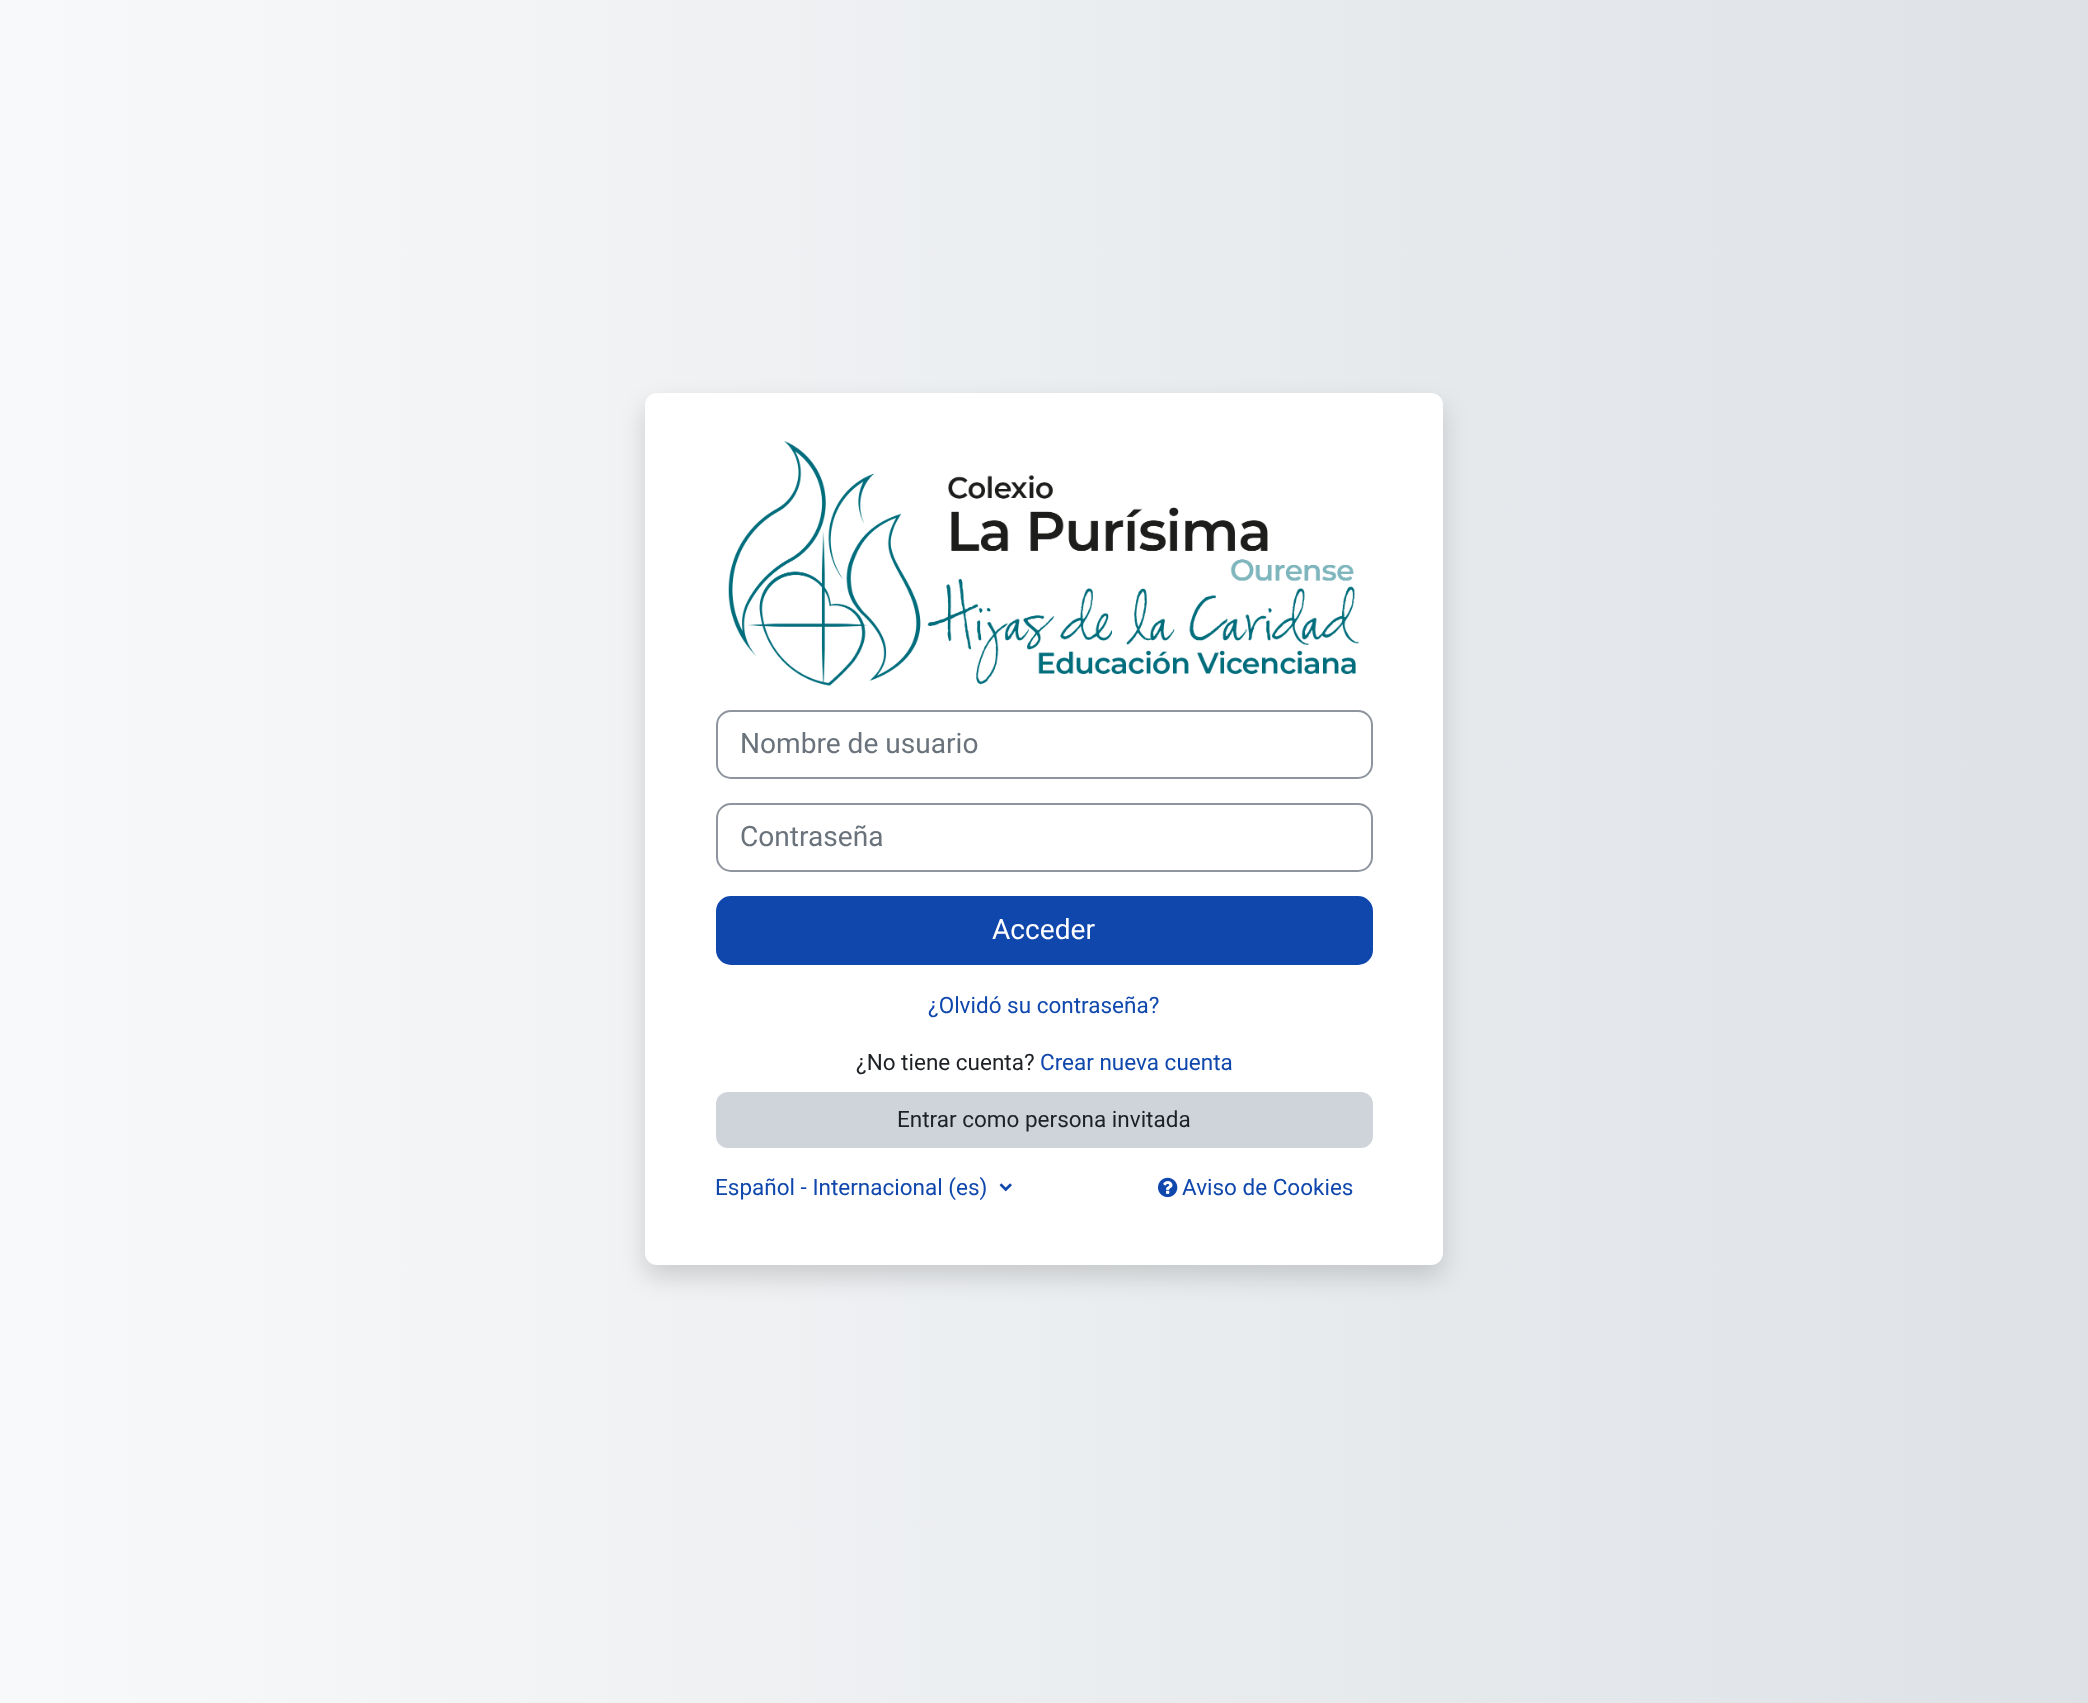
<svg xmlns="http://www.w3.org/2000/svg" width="2088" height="1703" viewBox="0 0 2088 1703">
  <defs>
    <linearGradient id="g1" gradientUnits="userSpaceOnUse" x1="0" y1="852" x2="2088" y2="852"><stop offset="0" stop-color="rgb(248,249,250)"/><stop offset="1" stop-color="rgb(222,226,230)"/></linearGradient>
  </defs>
  <rect width="100%" height="100%" fill="rgb(255,255,255)"/>
  <rect x="0" y="0" width="2088" height="1703" fill="url(#g1)"/>
  <rect x="645" y="405" width="798" height="872" rx="12" fill="rgba(0,0,0,0.15)" filter="blur(12px)"/>
  <rect x="645" y="393" width="798" height="872" rx="12" fill="rgb(255,255,255)"/>
  <image x="728" y="441" width="632" height="245" href="pic1.png"/>
  <rect x="717" y="711" width="655" height="67" rx="14" fill="none" stroke="rgb(143,149,158)" stroke-width="2"/>
  <text x="740" y="753" font-family="Roboto" font-size="28.1" fill="rgb(106,115,123)">Nombre de usuario</text>
  <rect x="717" y="804" width="655" height="67" rx="14" fill="none" stroke="rgb(143,149,158)" stroke-width="2"/>
  <text x="740" y="846" font-family="Roboto" font-size="28.1" fill="rgb(106,115,123)">Contraseña</text>
  <rect x="717" y="897" width="655" height="67" rx="14" fill="rgb(15,71,173)" stroke="rgb(15,71,173)" stroke-width="2"/>
  <text x="992" y="939" font-family="Roboto" font-size="28.1" fill="rgb(255,255,255)">Acceder</text>
  <text x="928" y="1013" font-family="Roboto" font-size="22.5" fill="rgb(15,71,173)">¿Olvidó su contraseña?</text>
  <text x="856" y="1070" font-family="Roboto" font-size="22.5" fill="rgb(29,33,37)">¿No tiene cuenta?</text>
  <text x="1040" y="1070" font-family="Roboto" font-size="22.5" fill="rgb(15,71,173)">Crear nueva cuenta</text>
  <rect x="717" y="1093" width="655" height="54" rx="11" fill="rgb(206,212,218)" stroke="rgb(206,212,218)" stroke-width="2"/>
  <text x="897" y="1127" font-family="Roboto" font-size="22.5" fill="rgb(29,33,37)">Entrar como persona invitada</text>
  <text x="715" y="1195" font-family="Roboto" font-size="22.5" fill="rgb(15,71,173)">Español - Internacional (es)</text>
  <image x="999" y="1183" width="13" height="9" href="pic2.png"/>
  <image x="1158" y="1177" width="20" height="21" href="pic3.png"/>
  <text x="1182" y="1195" font-family="Roboto" font-size="22.5" fill="rgb(15,71,173)">Aviso de Cookies</text>
</svg>
